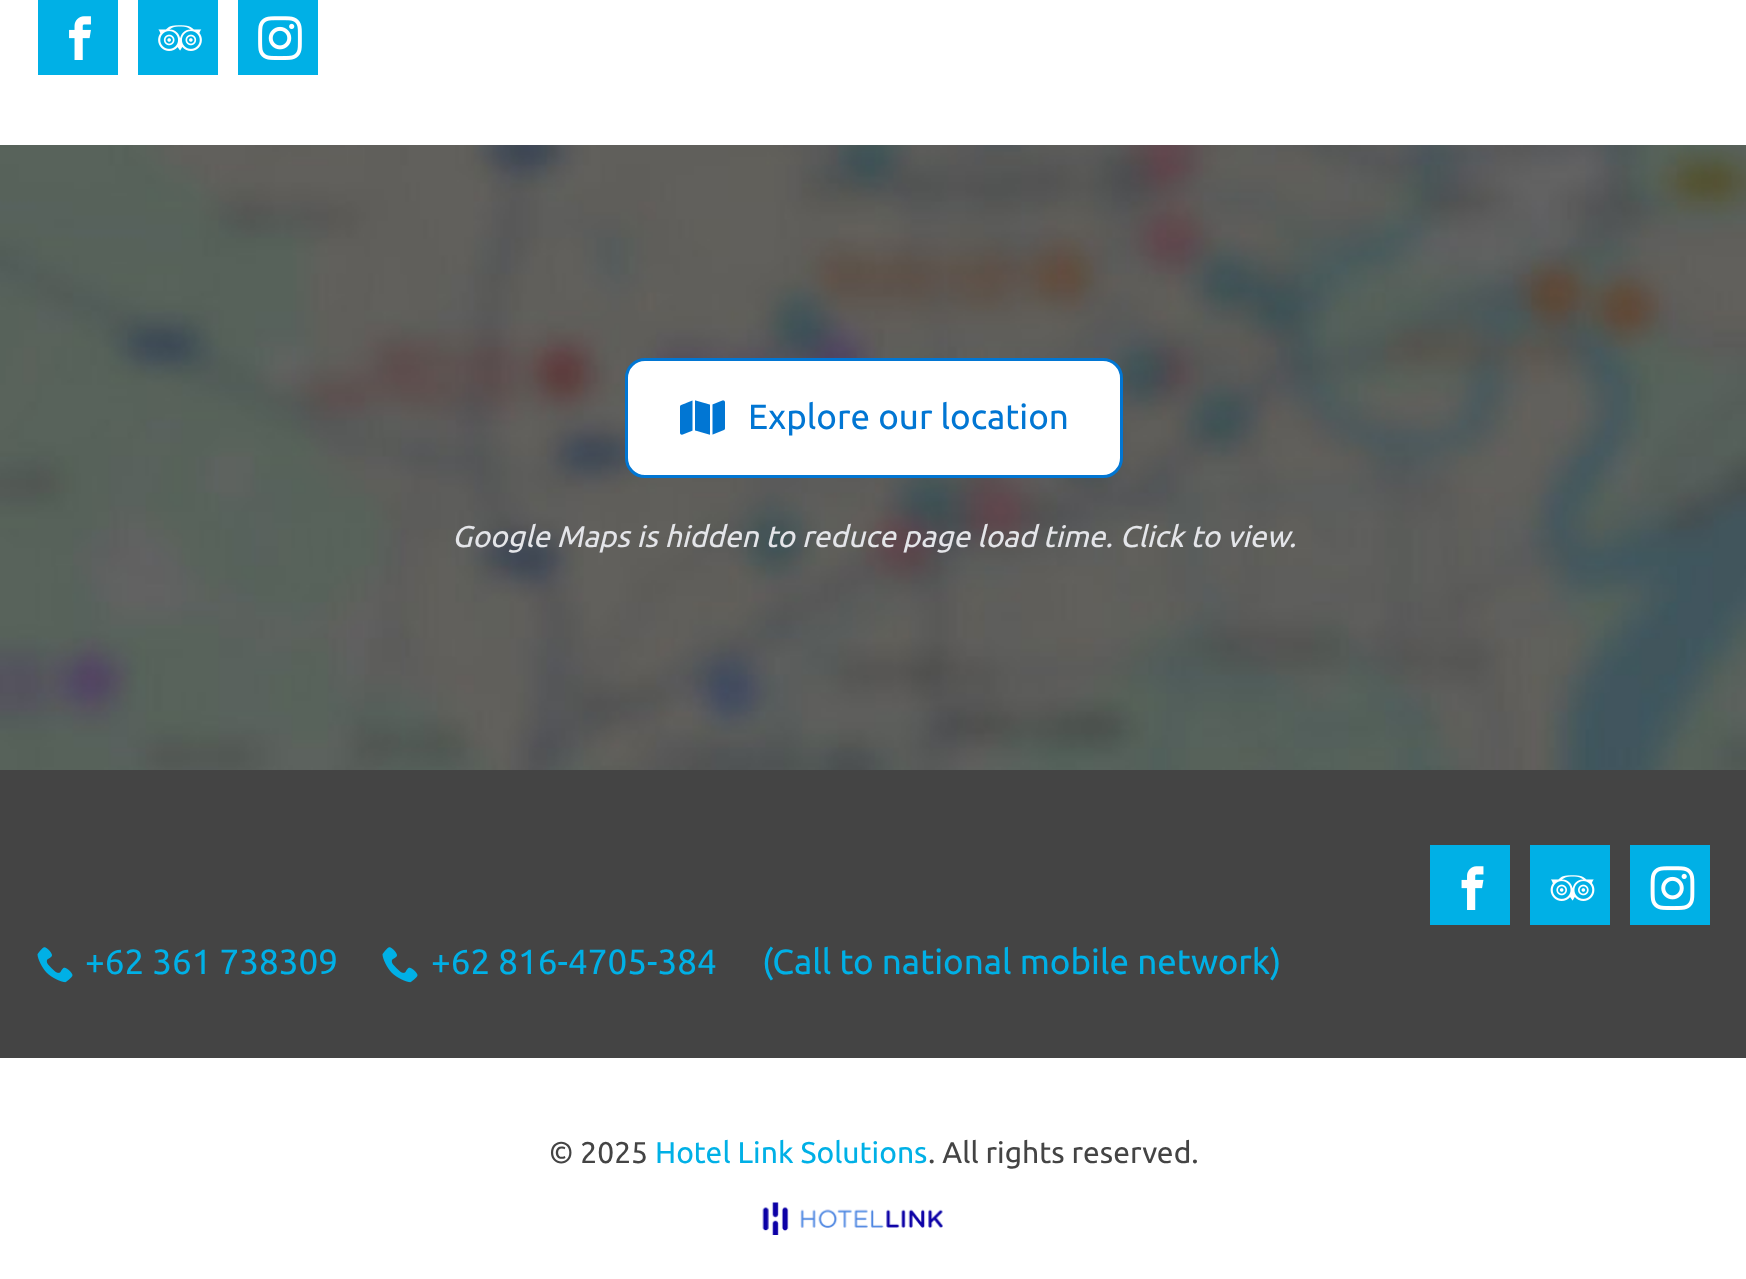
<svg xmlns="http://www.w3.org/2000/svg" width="1746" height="1279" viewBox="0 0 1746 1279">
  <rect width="100%" height="100%" fill="rgb(255,255,255)"/>
  <rect x="38" y="0" width="80" height="75" fill="rgb(0,176,230)"/>
  <image x="69" y="16" width="22" height="44" href="pic1.png"/>
  <rect x="138" y="0" width="80" height="75" fill="rgb(0,176,230)"/>
  <image x="158" y="25" width="44" height="26" href="pic2.png"/>
  <rect x="238" y="0" width="80" height="75" fill="rgb(0,176,230)"/>
  <image x="258" y="16" width="44" height="44" href="pic3.png"/>
  <image x="0" y="145" width="1746" height="625" href="pic4.png"/>
  <rect x="626.5" y="359.5" width="495" height="117" rx="18.5" fill="rgb(255,255,255)" stroke="rgb(1,118,211)" stroke-width="3"/>
  <image x="680" y="400" width="45" height="35" href="pic5.png"/>
  <text x="748" y="429" font-family="Ubuntu" font-size="35" fill="rgb(1,118,211)">Explore our location</text>
  <text x="452" y="547" font-family="Ubuntu" font-size="30" font-style="italic" fill="rgb(228,229,233)">Google Maps is hidden to reduce page load time. Click to view.</text>
  <rect x="0" y="770" width="1746" height="288" fill="rgb(68,68,68)"/>
  <rect x="1430" y="845" width="80" height="80" fill="rgb(0,176,230)"/>
  <image x="1461" y="866" width="23" height="44" href="pic6.png"/>
  <rect x="1530" y="845" width="80" height="80" fill="rgb(0,176,230)"/>
  <image x="1550" y="875" width="45" height="26" href="pic7.png"/>
  <rect x="1630" y="845" width="80" height="80" fill="rgb(0,176,230)"/>
  <image x="1650" y="866" width="45" height="44" href="pic8.png"/>
  <image x="37" y="947" width="36" height="36" href="pic9.png"/>
  <text x="85" y="974" font-family="Ubuntu" font-size="35" fill="rgb(0,176,230)">+62 361 738309</text>
  <image x="382" y="947" width="36" height="36" href="pic9.png"/>
  <g font-family="Ubuntu" font-size="35" fill="rgb(0,176,230)">
    <text x="431" y="974">+62 816-4705-384</text>
    <text x="762" y="974">(Call to national mobile network)</text>
  </g>
  <text x="549" y="1163" font-family="Ubuntu" font-size="30" fill="rgb(68,68,68)">© 2025</text>
  <text x="655" y="1163" font-family="Ubuntu" font-size="30" fill="rgb(0,176,230)">Hotel Link Solutions</text>
  <text x="928" y="1163" font-family="Ubuntu" font-size="30" fill="rgb(68,68,68)">. All rights reserved.</text>
  <image x="762" y="1202" width="181" height="33" href="pic10.png"/>
</svg>
